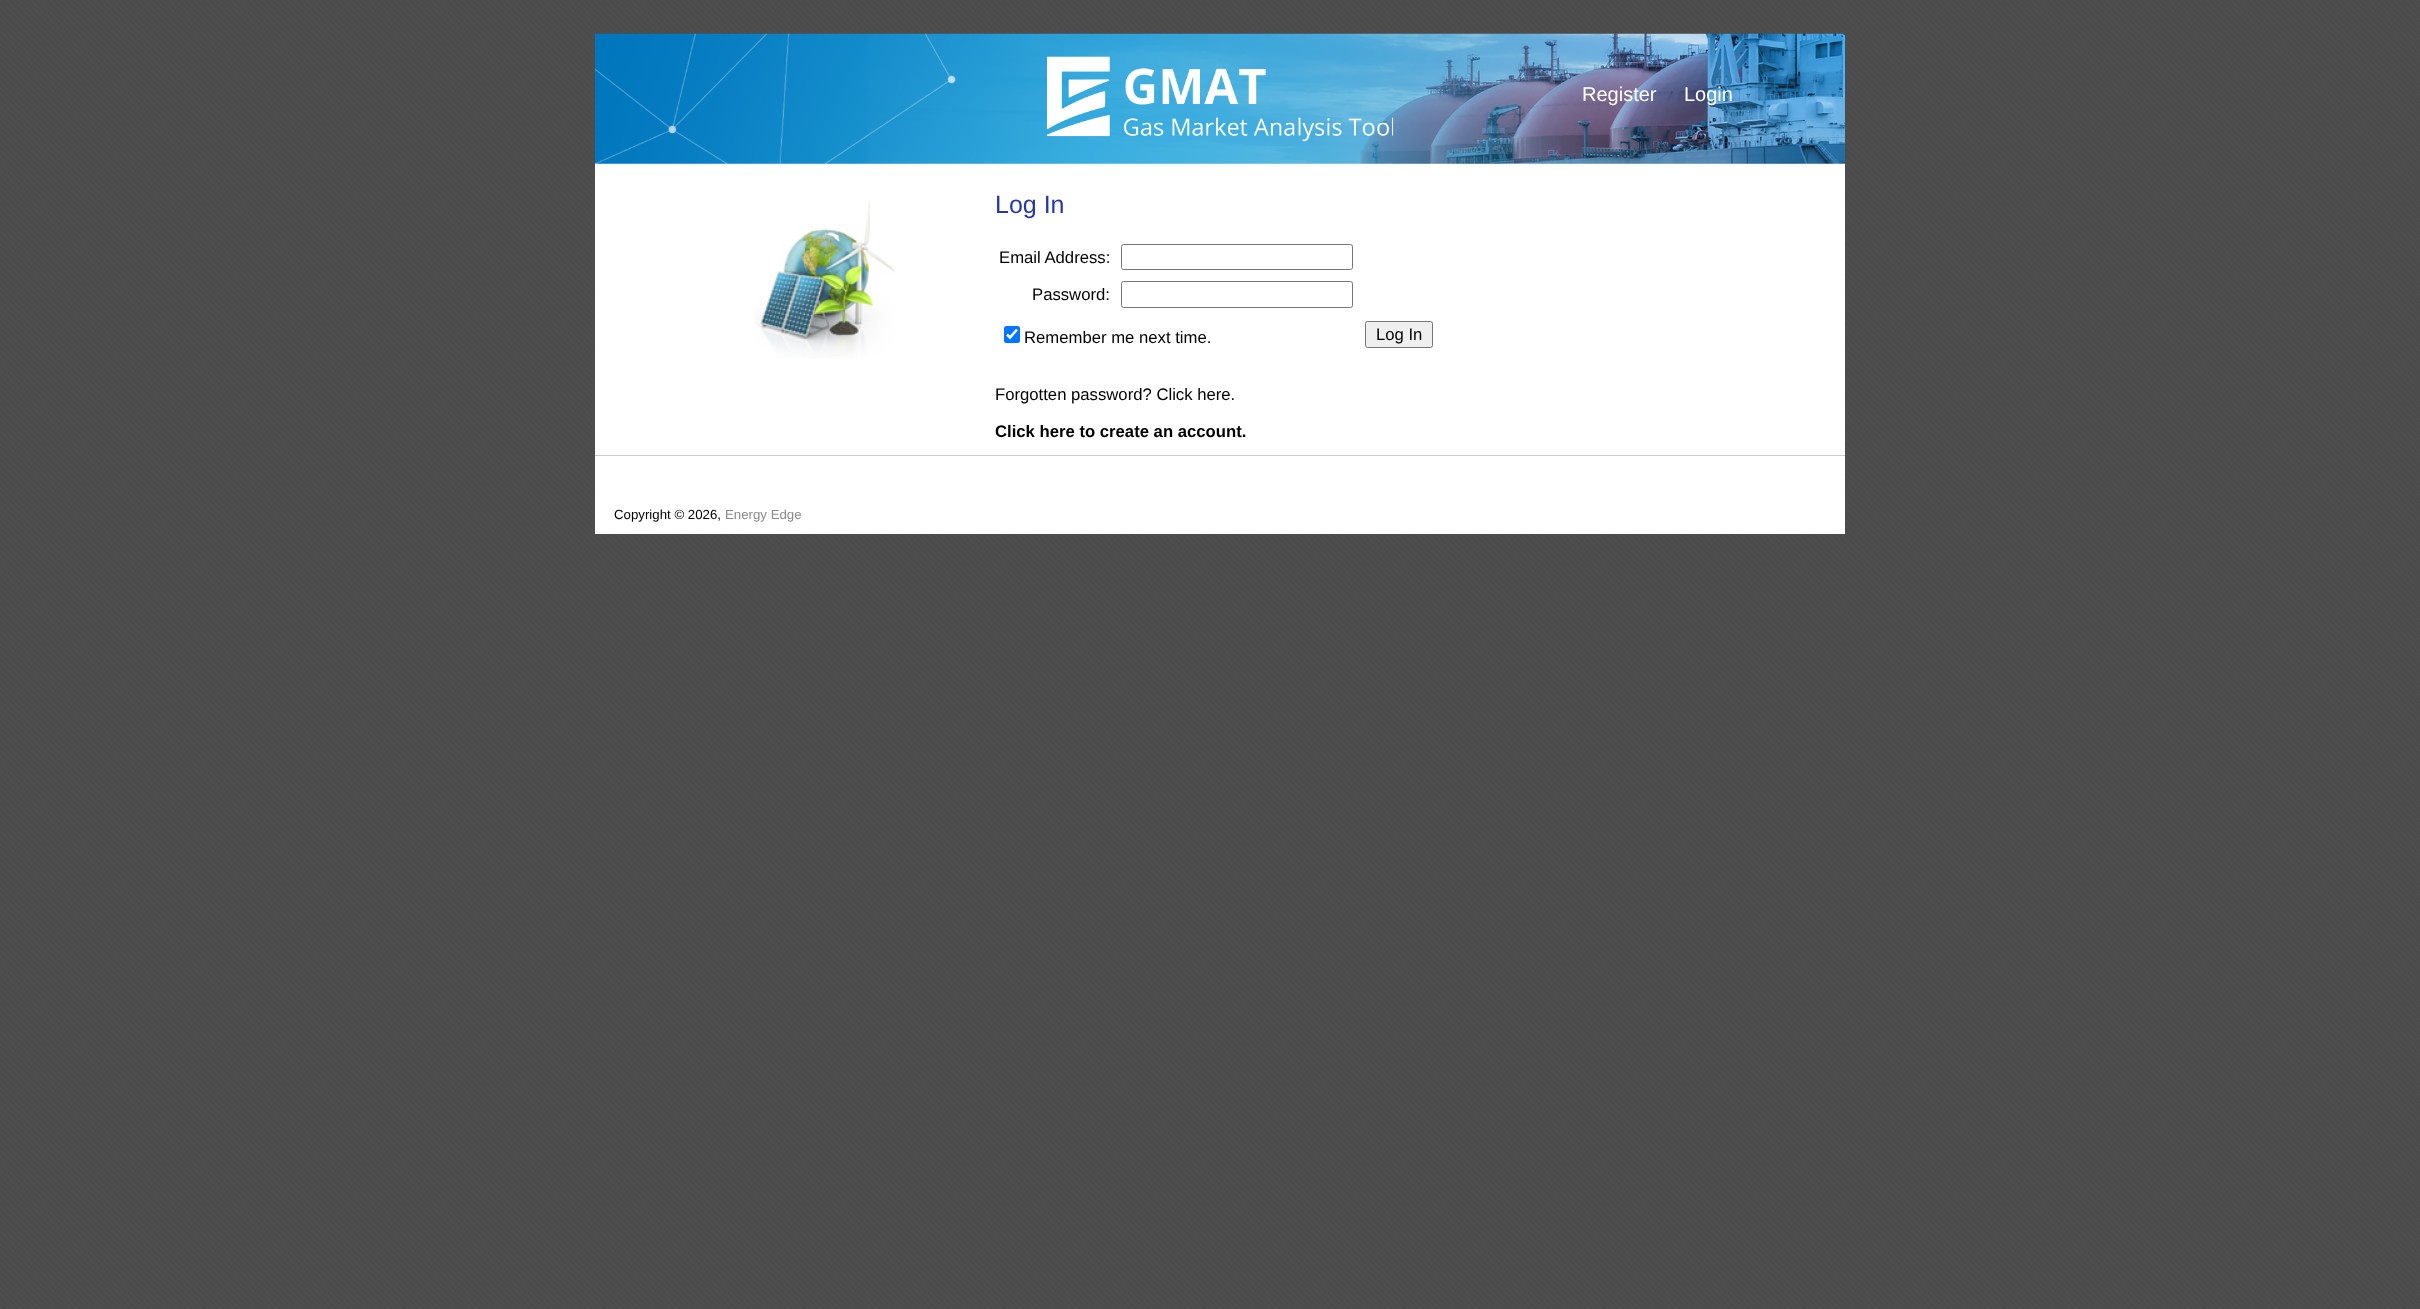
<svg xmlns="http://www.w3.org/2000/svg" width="2420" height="1309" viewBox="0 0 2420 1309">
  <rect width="100%" height="100%" fill="rgb(255,255,255)"/>
  <image x="0" y="0" width="2420" height="1309" href="pic1.png"/>
  <rect x="595" y="163" width="1250" height="371" fill="rgb(255,255,255)"/>
  <image x="595" y="33" width="1250" height="131" href="pic2.png"/>
  <g font-family="Liberation Sans" font-size="20" fill="rgb(255,255,255)">
    <text x="1582" y="101">Register</text>
    <text x="1684" y="101">Login</text>
  </g>
  <image x="754" y="200" width="141" height="159" href="pic3.png"/>
  <text x="995" y="213" font-family="Arimo" font-size="25" fill="rgb(37,56,166)">Log In</text>
  <text x="999" y="263" font-family="Liberation Sans" font-size="16.7" fill="rgb(0,0,0)">Email Address:</text>
  <rect x="1121.5" y="244.5" width="231" height="25" rx="2" fill="none" stroke="rgb(118,118,118)"/>
  <text x="1032" y="300" font-family="Liberation Sans" font-size="16.7" fill="rgb(0,0,0)">Password:</text>
  <rect x="1121.5" y="281.5" width="231" height="26" rx="2" fill="none" stroke="rgb(118,118,118)"/>
  <rect x="1004" y="326" width="16" height="17" rx="2.5" fill="rgb(0,117,255)"/>
  <path d="M1007 334.5L1010 337.5L1017 329.5" fill="none" stroke="rgb(255,255,255)" stroke-width="2.6"/>
  <text x="1024" y="343" font-family="Liberation Sans" font-size="16.7" fill="rgb(0,0,0)">Remember me next time.</text>
  <rect x="1365.5" y="321.5" width="67" height="26" rx="2" fill="rgb(239,239,239)" stroke="rgb(118,118,118)"/>
  <g font-family="Liberation Sans" font-size="16.7" fill="rgb(0,0,0)">
    <text x="1376" y="340">Log In</text>
    <text x="995" y="400">Forgotten password? Click here.</text>
  </g>
  <text x="995" y="437" font-family="Liberation Sans" font-size="16.7" font-weight="bold" fill="rgb(0,0,0)">Click here to create an account.</text>
  <rect x="595" y="455" width="1250" height="1" fill="rgb(204,204,204)"/>
  <text x="614" y="519" font-family="Liberation Sans" font-size="13.25" fill="rgb(0,0,0)">Copyright © 2026,</text>
  <text x="725" y="519" font-family="Liberation Sans" font-size="13.25" fill="rgb(138,138,138)">Energy Edge</text>
</svg>
